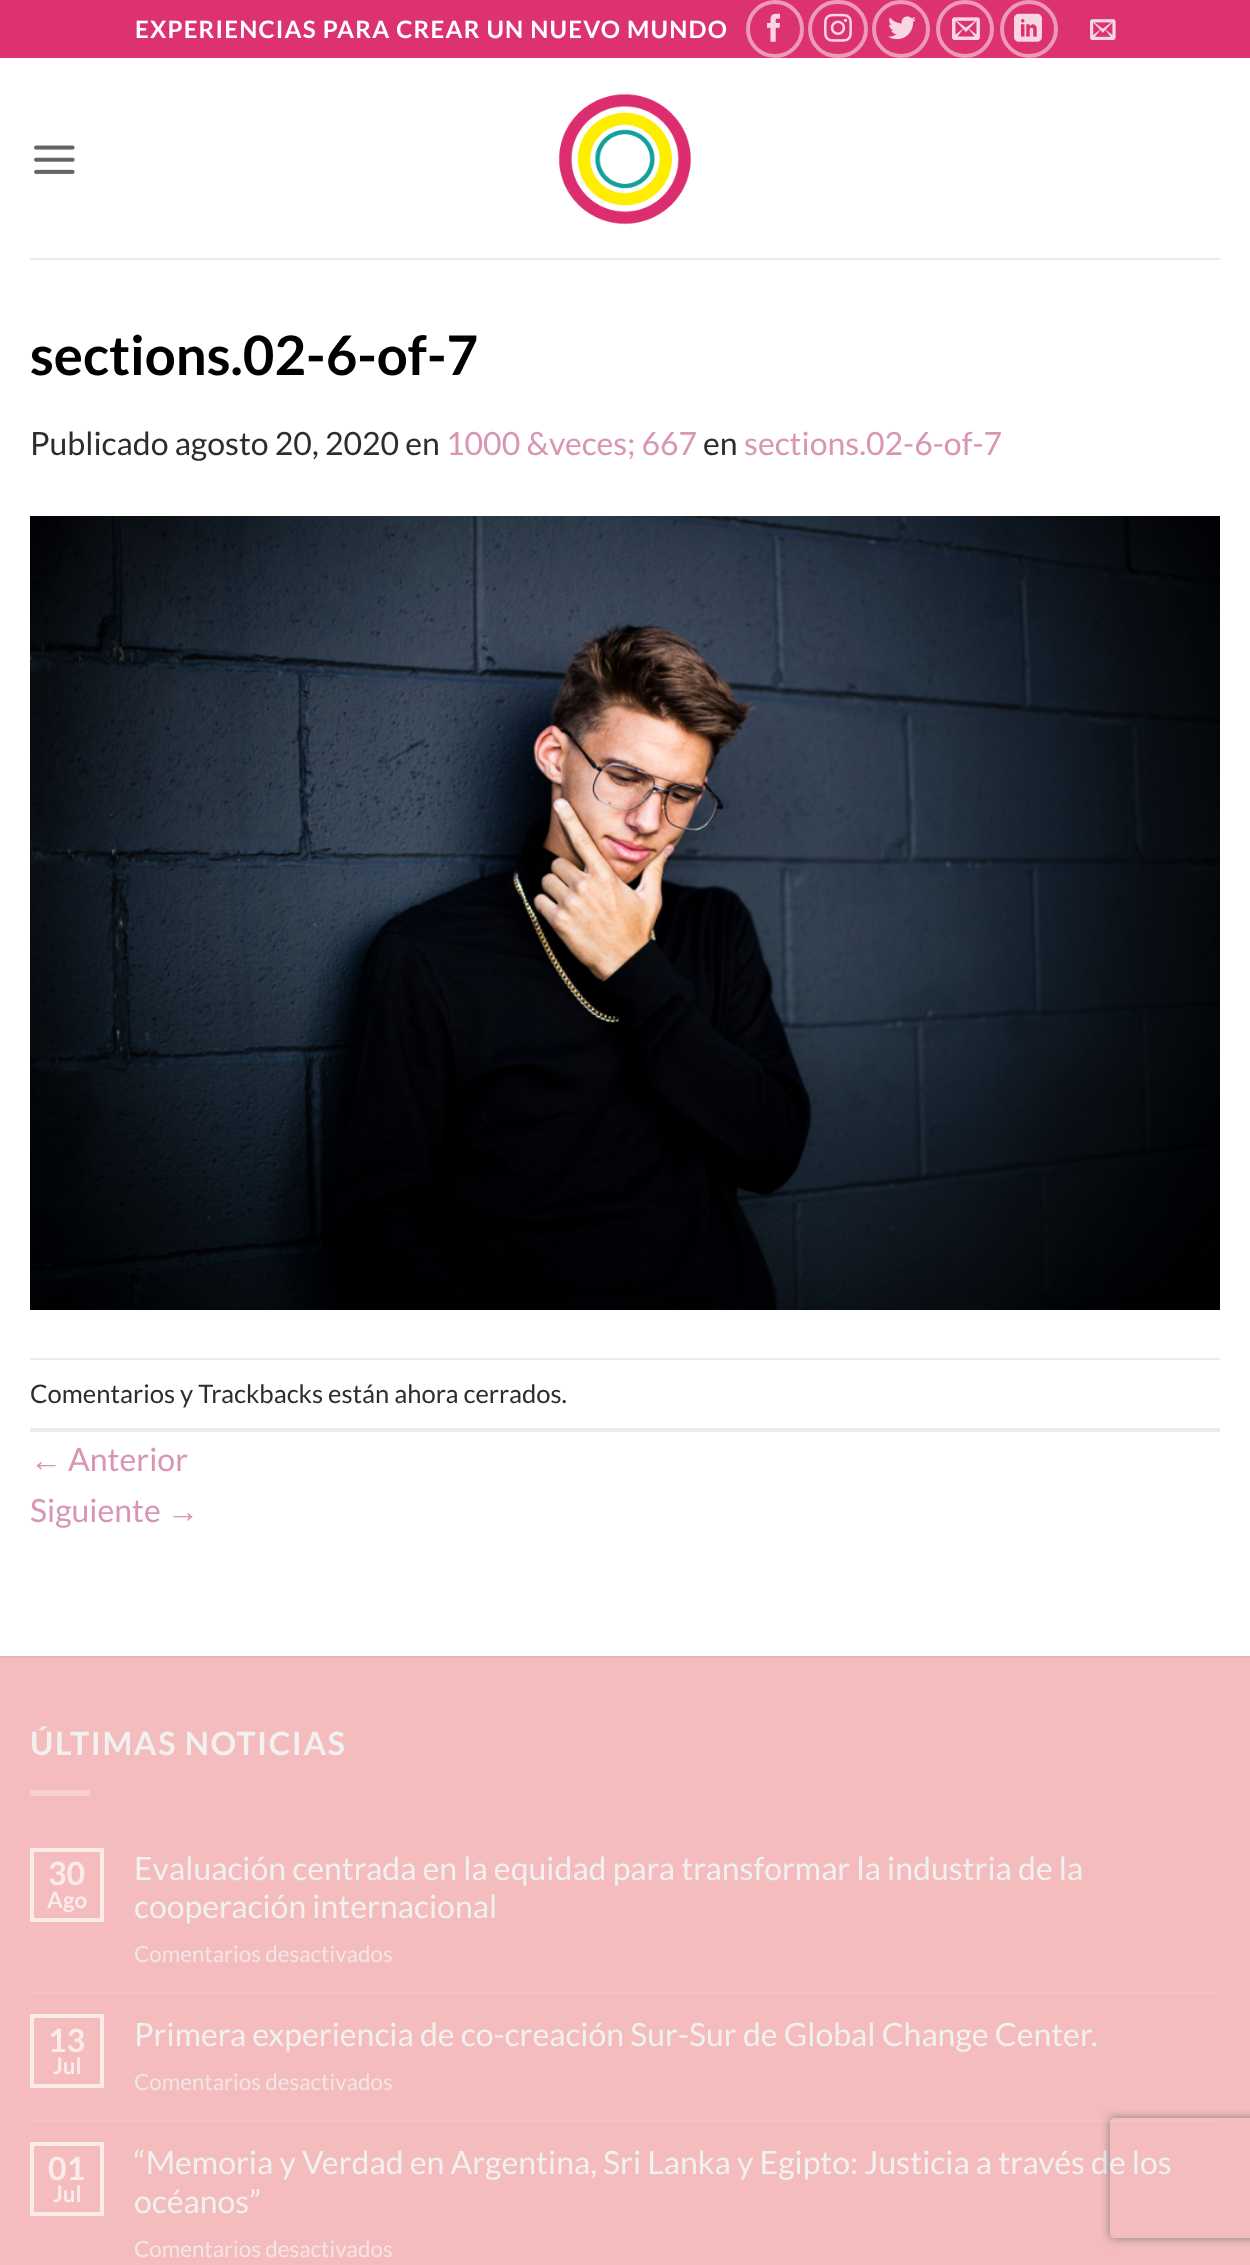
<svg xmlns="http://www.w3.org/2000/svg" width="1250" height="2265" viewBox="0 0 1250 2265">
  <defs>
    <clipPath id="clip1"><path d="M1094 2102H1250V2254H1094ZM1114 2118H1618C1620 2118 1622 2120 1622 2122V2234C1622 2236 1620 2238 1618 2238H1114C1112 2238 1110 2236 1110 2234V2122C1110 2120 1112 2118 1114 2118Z" clip-rule="evenodd"/></clipPath>
  </defs>
  <rect width="100%" height="100%" fill="rgb(255,255,255)"/>
  <rect x="0" y="0" width="1250" height="58" fill="rgb(220,50,112)"/>
  <text x="135" y="38" font-family="Lato" font-size="24" font-weight="bold" letter-spacing="1.2" fill="rgb(255,255,255)">EXPERIENCIAS PARA CREAR UN NUEVO MUNDO</text>
  <circle cx="775" cy="29" r="27" fill="none" stroke="rgb(238,153,184)" stroke-width="4"/>
  <image x="767" y="13" width="13" height="29" href="pic1.png"/>
  <rect x="810" y="2" width="56" height="54" rx="27" fill="none" stroke="rgb(238,153,184)" stroke-width="4"/>
  <image x="824" y="13" width="28" height="29" href="pic2.png"/>
  <circle cx="901" cy="29" r="27" fill="none" stroke="rgb(238,153,184)" stroke-width="4"/>
  <image x="888" y="16" width="28" height="24" href="pic3.png"/>
  <circle cx="965" cy="29" r="27" fill="none" stroke="rgb(238,153,184)" stroke-width="4"/>
  <image x="952" y="17" width="28" height="23" href="pic4.png"/>
  <circle cx="1029" cy="29" r="27" fill="none" stroke="rgb(238,153,184)" stroke-width="4"/>
  <image x="1014" y="13" width="28" height="29" href="pic5.png"/>
  <image x="1090" y="19" width="26" height="21" href="pic6.png"/>
  <image x="34" y="145" width="41" height="29" href="pic7.png"/>
  <image x="559" y="94" width="132" height="131" href="pic8.png"/>
  <rect x="30" y="258" width="1190" height="2" fill="rgb(234,234,234)"/>
  <text x="30" y="375" font-family="Lato" font-size="54.5" font-weight="bold" fill="rgb(0,0,0)">sections.02-6-of-7</text>
  <text x="30" y="455" font-family="Lato" font-size="32" fill="rgb(45,45,45)">Publicado agosto 20, 2020 en</text>
  <text x="446" y="455" font-family="Lato" font-size="32" fill="rgb(216,150,180)">1000 &amp;veces; 667</text>
  <text x="703" y="455" font-family="Lato" font-size="32" fill="rgb(45,45,45)">en</text>
  <text x="744" y="455" font-family="Lato" font-size="32" fill="rgb(216,150,180)">sections.02-6-of-7</text>
  <image x="30" y="516" width="1190" height="794" href="pic9.png"/>
  <rect x="30" y="1358" width="1190" height="2" fill="rgb(236,236,236)"/>
  <rect x="30" y="1428" width="1190" height="4" fill="rgb(236,236,236)"/>
  <text x="30" y="1403" font-family="Lato" font-size="25.6" fill="rgb(45,45,45)">Comentarios y Trackbacks están ahora cerrados.</text>
  <text x="30" y="1471" font-family="Liberation Sans" font-size="32" fill="rgb(216,150,180)">←</text>
  <g font-family="Lato" font-size="32" fill="rgb(216,150,180)">
    <text x="68" y="1471">Anterior</text>
    <text x="30" y="1522">Siguiente</text>
  </g>
  <text x="167" y="1522" font-family="Liberation Sans" font-size="32" fill="rgb(216,150,180)">→</text>
  <rect x="0" y="1658" width="1250" height="607" fill="rgb(244,188,188)"/>
  <rect x="0" y="1656" width="1250" height="2" fill="rgb(232,179,179)"/>
  <text x="30" y="1755" font-family="Lato" font-size="32" font-weight="bold" letter-spacing="1.6" fill="rgb(241,241,241)">ÚLTIMAS NOTICIAS</text>
  <rect x="30" y="1790" width="60" height="6" fill="rgb(247,208,208)"/>
  <rect x="32" y="1850" width="70" height="70" fill="none" stroke="rgb(252,235,235)" stroke-width="4"/>
  <text x="48" y="1885" font-family="Lato" font-size="32" font-weight="bold" fill="rgb(252,235,235)">30</text>
  <text x="47" y="1908" font-family="Lato" font-size="22.4" font-weight="bold" fill="rgb(252,235,235)">Ago</text>
  <g font-family="Lato" font-size="32" fill="rgb(241,241,241)">
    <text>
      <tspan x="134" y="1880">Evaluación centrada en la equidad para transformar la industria de la</tspan>
      <tspan x="134" y="1918">cooperación internacional</tspan>
    </text>
  </g>
  <text x="134" y="1962" font-family="Lato" font-size="22.4" fill="rgb(242,230,230)">Comentarios desactivados</text>
  <rect x="30" y="1992" width="1190" height="2" fill="rgb(245,193,193)"/>
  <rect x="32" y="2016" width="70" height="70" fill="none" stroke="rgb(252,235,235)" stroke-width="4"/>
  <text x="48" y="2052" font-family="Lato" font-size="32" font-weight="bold" fill="rgb(252,235,235)">13</text>
  <text x="53" y="2074" font-family="Lato" font-size="22.4" font-weight="bold" fill="rgb(252,235,235)">Jul</text>
  <text x="134" y="2046" font-family="Lato" font-size="32" fill="rgb(241,241,241)">Primera experiencia de co-creación Sur-Sur de Global Change Center.</text>
  <text x="134" y="2090" font-family="Lato" font-size="22.4" fill="rgb(242,230,230)">Comentarios desactivados</text>
  <rect x="30" y="2120" width="1190" height="2" fill="rgb(245,193,193)"/>
  <rect x="32" y="2144" width="70" height="70" fill="none" stroke="rgb(252,235,235)" stroke-width="4"/>
  <text x="48" y="2180" font-family="Lato" font-size="32" font-weight="bold" fill="rgb(252,235,235)">01</text>
  <text x="53" y="2202" font-family="Lato" font-size="22.4" font-weight="bold" fill="rgb(252,235,235)">Jul</text>
  <g font-family="Lato" font-size="32" fill="rgb(241,241,241)">
    <text>
      <tspan x="134" y="2174">“Memoria y Verdad en Argentina, Sri Lanka y Egipto: Justicia a través de los</tspan>
      <tspan x="134" y="2213">océanos”</tspan>
    </text>
  </g>
  <text x="134" y="2257" font-family="Lato" font-size="22.4" fill="rgb(242,230,230)">Comentarios desactivados</text>
  <g clip-path="url(#clip1)">
    <rect x="1110" y="2118" width="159" height="120" rx="4" fill="rgb(128,128,128)" filter="blur(5px)"/>
  </g>
</svg>
